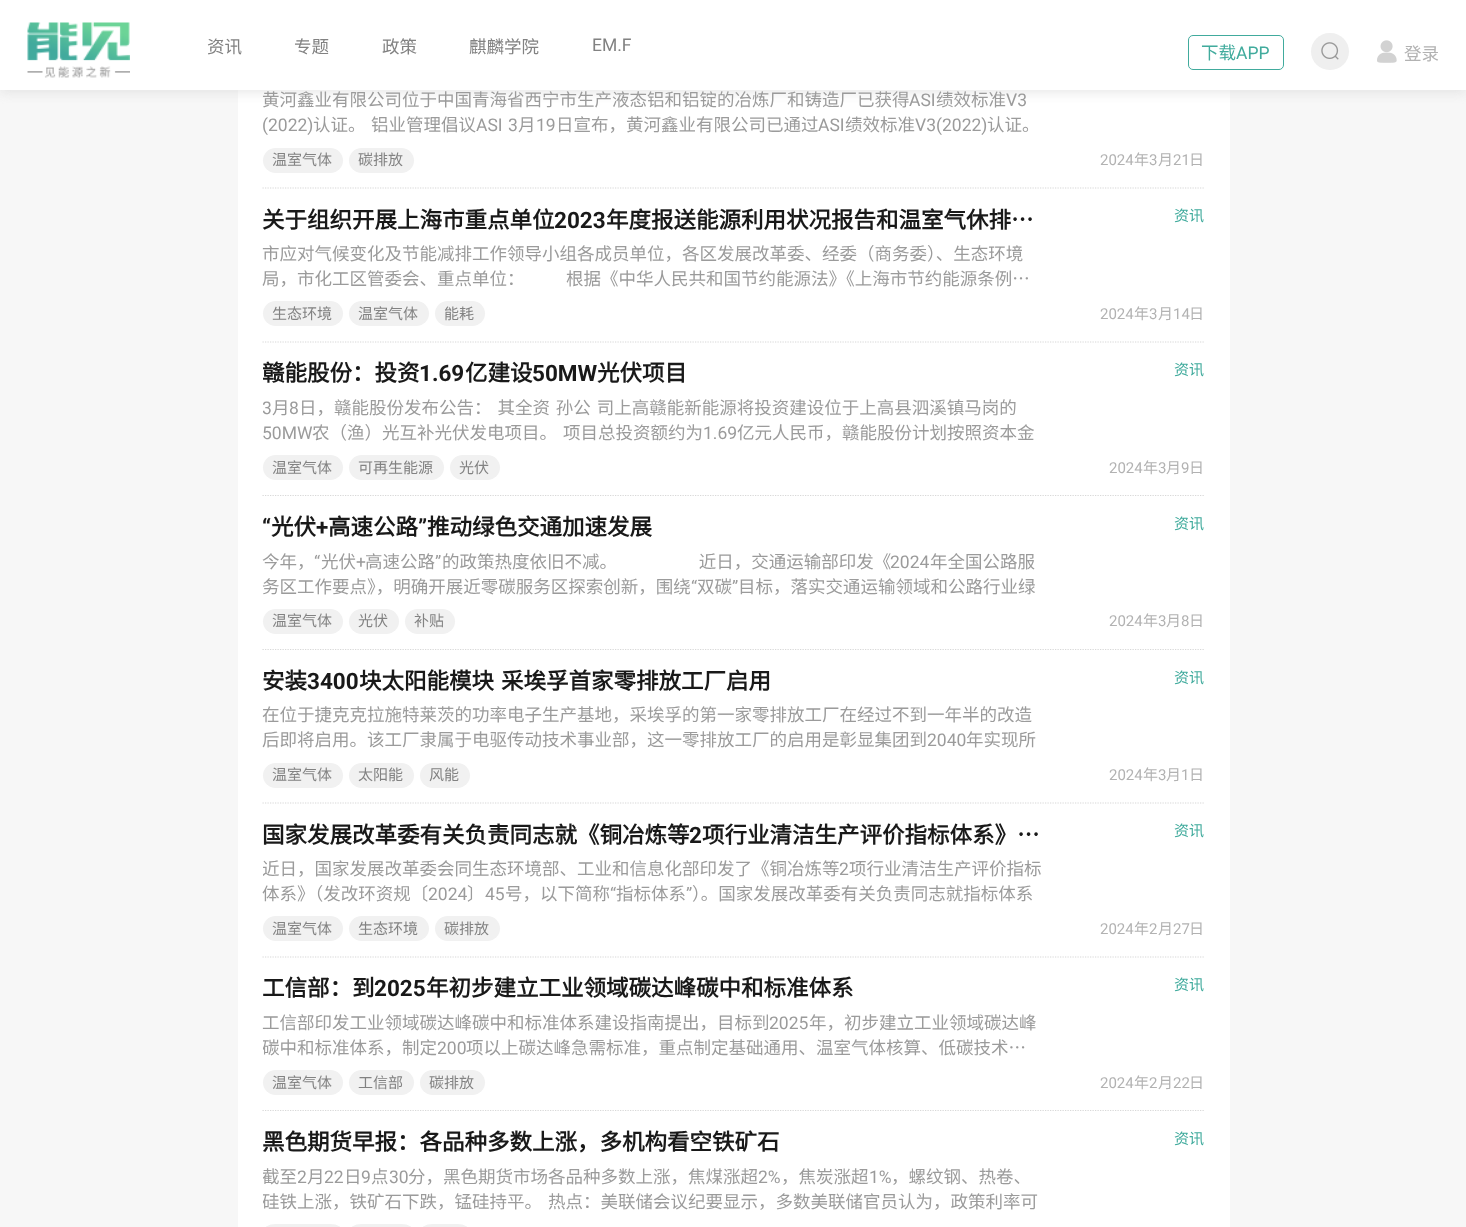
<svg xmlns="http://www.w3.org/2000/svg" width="1466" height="1227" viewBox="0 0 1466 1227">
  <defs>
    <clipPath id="clip1"><rect x="263" y="358" width="780" height="31"/></clipPath>
    <clipPath id="clip2"><rect x="263" y="395" width="780" height="50"/></clipPath>
    <clipPath id="clip3"><rect x="263" y="856" width="780" height="50"/></clipPath>
    <clipPath id="clip4"><rect x="263" y="1010" width="780" height="50"/></clipPath>
    <clipPath id="clip5"><rect x="263" y="1164" width="780" height="50"/></clipPath>
  </defs>
  <rect width="100%" height="100%" fill="rgb(247,247,247)"/>
  <rect x="238" y="90" width="992" height="1137" fill="rgb(255,255,255)"/>
  <rect x="0" y="3" width="1466" height="90" fill="rgba(212,212,212,0.5)" filter="blur(5.5px)"/>
  <rect x="0" y="0" width="1466" height="90" fill="rgb(255,255,255)"/>
  <image x="27" y="22" width="103" height="56" href="pic1.png"/>
  <g font-family="Noto Sans CJK SC" font-size="17.5" fill="rgb(130,130,130)">
    <text x="207" y="53">资讯</text>
    <text x="294" y="53">专题</text>
    <text x="382" y="53">政策</text>
    <text x="469" y="53">麒麟学院</text>
  </g>
  <text x="592" y="51" font-family="Roboto" font-size="17.5" fill="rgb(130,130,130)">EM.F</text>
  <rect x="1188.5" y="35.5" width="95" height="34" rx="4.5" fill="none" stroke="rgb(65,171,157)"/>
  <text x="1201" y="59" font-family="Noto Sans CJK SC" font-size="17.5" fill="rgb(65,171,157)">下载</text>
  <text x="1236" y="59" font-family="Roboto" font-size="17.5" fill="rgb(65,171,157)">APP</text>
  <rect x="1311" y="33" width="38" height="37" rx="18.5" fill="rgb(239,239,239)"/>
  <image x="1321" y="42" width="18" height="18" href="pic2.png"/>
  <image x="1377" y="40" width="20" height="23" href="pic3.png"/>
  <text x="1404" y="60" font-family="Noto Sans CJK SC" font-size="17.5" fill="rgb(178,178,178)">登录</text>
  <path d="M262.5 188H1205" fill="none" stroke="rgb(216,216,216)" stroke-width="1.2" stroke-dasharray="1.25 1.25"/>
  <text x="262" y="106" font-family="Noto Sans CJK SC" font-size="17.5" fill="rgb(155,155,155)">黄河鑫业有限公司位于中国青海省西宁市生产液态铝和铝锭的冶炼厂和铸造厂已获得</text>
  <text x="909" y="106" font-family="Roboto" font-size="17.5" fill="rgb(155,155,155)">ASI</text>
  <text x="936" y="106" font-family="Noto Sans CJK SC" font-size="17.5" fill="rgb(155,155,155)">绩效标准</text>
  <g font-family="Roboto" font-size="17.5" fill="rgb(155,155,155)">
    <text x="1006" y="106">V3</text>
    <text x="262" y="131">(2022)</text>
  </g>
  <g font-family="Noto Sans CJK SC" font-size="17.5" fill="rgb(155,155,155)">
    <text x="313" y="131">认证。</text>
    <text x="371" y="131">铝业管理倡议</text>
  </g>
  <text x="476" y="131" word-spacing="1" font-family="Roboto" font-size="17.5" fill="rgb(155,155,155)">ASI 3</text>
  <text x="518" y="131" font-family="Noto Sans CJK SC" font-size="17.5" fill="rgb(155,155,155)">月</text>
  <text x="536" y="131" font-family="Roboto" font-size="17.5" fill="rgb(155,155,155)">19</text>
  <text x="556" y="131" font-family="Noto Sans CJK SC" font-size="17.5" fill="rgb(155,155,155)">日宣布，黄河鑫业有限公司已通过</text>
  <text x="818" y="131" font-family="Roboto" font-size="17.5" fill="rgb(155,155,155)">ASI</text>
  <text x="845" y="131" font-family="Noto Sans CJK SC" font-size="17.5" fill="rgb(155,155,155)">绩效标准</text>
  <text x="915" y="131" font-family="Roboto" font-size="17.5" fill="rgb(155,155,155)">V3(2022)</text>
  <text x="987" y="131" font-family="Noto Sans CJK SC" font-size="17.5" fill="rgb(155,155,155)">认证。</text>
  <rect x="263" y="148" width="80" height="25" rx="12.5" fill="rgb(241,241,241)"/>
  <text x="272" y="165" font-family="Noto Sans CJK SC" font-size="15" fill="rgb(130,130,130)">温室气体</text>
  <rect x="349" y="148" width="65" height="25" rx="12.5" fill="rgb(241,241,241)"/>
  <text x="358" y="165" font-family="Noto Sans CJK SC" font-size="15" fill="rgb(130,130,130)">碳排放</text>
  <text x="1100" y="165" font-family="Roboto" font-size="15" fill="rgb(178,178,178)">2024</text>
  <text x="1134" y="165" font-family="Noto Sans CJK SC" font-size="15" fill="rgb(178,178,178)">年</text>
  <text x="1149" y="165" font-family="Roboto" font-size="15" fill="rgb(178,178,178)">3</text>
  <text x="1158" y="165" font-family="Noto Sans CJK SC" font-size="15" fill="rgb(178,178,178)">月</text>
  <text x="1173" y="165" font-family="Roboto" font-size="15" fill="rgb(178,178,178)">21</text>
  <text x="1189" y="165" font-family="Noto Sans CJK SC" font-size="15" fill="rgb(178,178,178)">日</text>
  <path d="M262.5 342H1205" fill="none" stroke="rgb(216,216,216)" stroke-width="1.2" stroke-dasharray="1.25 1.25"/>
  <text x="262" y="228" font-family="Noto Sans CJK SC" font-size="22.5" font-weight="bold" fill="rgb(25,25,25)">关于组织开展上海市重点单位</text>
  <text x="554" y="228" font-family="Roboto" font-size="22.5" font-weight="bold" fill="rgb(25,25,25)">2023</text>
  <text x="606" y="228" font-family="Noto Sans CJK SC" font-size="22.5" font-weight="bold" fill="rgb(25,25,25)">年度报送能源利用状况报告和温室气休排…</text>
  <text x="1174" y="221" font-family="Noto Sans CJK SC" font-size="15" fill="rgb(65,171,157)">资讯</text>
  <g font-family="Noto Sans CJK SC" font-size="17.5" fill="rgb(155,155,155)">
    <text>
      <tspan x="262" y="260">市应对气候变化及节能减排工作领导小组各成员单位，各区发展改革委、经委（商务委）、生态环境</tspan>
      <tspan x="262" y="285">局，市化工区管委会、重点单位：</tspan>
    </text>
    <text x="566" y="285">根据《中华人民共和国节约能源法》《上海市节约能源条例…</text>
  </g>
  <rect x="263" y="301" width="80" height="25" rx="12.5" fill="rgb(241,241,241)"/>
  <text x="272" y="319" font-family="Noto Sans CJK SC" font-size="15" fill="rgb(130,130,130)">生态环境</text>
  <rect x="349" y="301" width="80" height="25" rx="12.5" fill="rgb(241,241,241)"/>
  <text x="358" y="319" font-family="Noto Sans CJK SC" font-size="15" fill="rgb(130,130,130)">温室气体</text>
  <rect x="435" y="301" width="50" height="25" rx="12.5" fill="rgb(241,241,241)"/>
  <text x="444" y="319" font-family="Noto Sans CJK SC" font-size="15" fill="rgb(130,130,130)">能耗</text>
  <text x="1100" y="319" font-family="Roboto" font-size="15" fill="rgb(178,178,178)">2024</text>
  <text x="1134" y="319" font-family="Noto Sans CJK SC" font-size="15" fill="rgb(178,178,178)">年</text>
  <text x="1149" y="319" font-family="Roboto" font-size="15" fill="rgb(178,178,178)">3</text>
  <text x="1158" y="319" font-family="Noto Sans CJK SC" font-size="15" fill="rgb(178,178,178)">月</text>
  <text x="1173" y="319" font-family="Roboto" font-size="15" fill="rgb(178,178,178)">14</text>
  <text x="1189" y="319" font-family="Noto Sans CJK SC" font-size="15" fill="rgb(178,178,178)">日</text>
  <path d="M262.5 495.5H1205" fill="none" stroke="rgb(216,216,216)" stroke-width="1.2" stroke-dasharray="1.25 1.25"/>
  <g clip-path="url(#clip1)">
    <text x="262" y="381" font-family="Noto Sans CJK SC" font-size="22.5" font-weight="bold" fill="rgb(25,25,25)">赣能股份：投资</text>
  </g>
  <text x="419" y="381" font-family="Roboto" font-size="22.5" font-weight="bold" fill="rgb(25,25,25)">1.69</text>
  <text x="465" y="381" font-family="Noto Sans CJK SC" font-size="22.5" font-weight="bold" fill="rgb(25,25,25)">亿建设</text>
  <text x="532" y="381" font-family="Roboto" font-size="22.5" font-weight="bold" fill="rgb(25,25,25)">50MW</text>
  <text x="597" y="381" font-family="Noto Sans CJK SC" font-size="22.5" font-weight="bold" fill="rgb(25,25,25)">光伏项目</text>
  <text x="1174" y="375" font-family="Noto Sans CJK SC" font-size="15" fill="rgb(65,171,157)">资讯</text>
  <g clip-path="url(#clip2)">
    <text x="262" y="414" font-family="Roboto" font-size="17.5" fill="rgb(155,155,155)">3</text>
  </g>
  <text x="272" y="414" font-family="Noto Sans CJK SC" font-size="17.5" fill="rgb(155,155,155)">月</text>
  <text x="289" y="414" font-family="Roboto" font-size="17.5" fill="rgb(155,155,155)">8</text>
  <text x="299" y="414" word-spacing="2" font-family="Noto Sans CJK SC" font-size="17.5" fill="rgb(155,155,155)">日，赣能股份发布公告： 其全资 孙公 司上高赣能新能源将投资建设位于上高县泗溪镇马岗的</text>
  <text x="262" y="439" font-family="Roboto" font-size="17.5" fill="rgb(155,155,155)">50MW</text>
  <text x="312" y="439" word-spacing="2" font-family="Noto Sans CJK SC" font-size="17.5" fill="rgb(155,155,155)">农（渔）光互补光伏发电项目。 项目总投资额约为</text>
  <text x="703" y="439" font-family="Roboto" font-size="17.5" fill="rgb(155,155,155)">1.69</text>
  <text x="737" y="439" font-family="Noto Sans CJK SC" font-size="17.5" fill="rgb(155,155,155)">亿元人民币，赣能股份计划按照资本金</text>
  <rect x="263" y="455" width="80" height="25" rx="12.5" fill="rgb(241,241,241)"/>
  <text x="272" y="473" font-family="Noto Sans CJK SC" font-size="15" fill="rgb(130,130,130)">温室气体</text>
  <rect x="349" y="455" width="95" height="25" rx="12.5" fill="rgb(241,241,241)"/>
  <text x="358" y="473" font-family="Noto Sans CJK SC" font-size="15" fill="rgb(130,130,130)">可再生能源</text>
  <rect x="450" y="455" width="50" height="25" rx="12.5" fill="rgb(241,241,241)"/>
  <text x="459" y="473" font-family="Noto Sans CJK SC" font-size="15" fill="rgb(130,130,130)">光伏</text>
  <text x="1109" y="473" font-family="Roboto" font-size="15" fill="rgb(178,178,178)">2024</text>
  <text x="1143" y="473" font-family="Noto Sans CJK SC" font-size="15" fill="rgb(178,178,178)">年</text>
  <text x="1158" y="473" font-family="Roboto" font-size="15" fill="rgb(178,178,178)">3</text>
  <text x="1166" y="473" font-family="Noto Sans CJK SC" font-size="15" fill="rgb(178,178,178)">月</text>
  <text x="1181" y="473" font-family="Roboto" font-size="15" fill="rgb(178,178,178)">9</text>
  <text x="1189" y="473" font-family="Noto Sans CJK SC" font-size="15" fill="rgb(178,178,178)">日</text>
  <path d="M262.5 649.5H1205" fill="none" stroke="rgb(216,216,216)" stroke-width="1.2" stroke-dasharray="1.25 1.25"/>
  <text x="262" y="535" font-family="Roboto" font-size="22.5" font-weight="bold" fill="rgb(25,25,25)">“</text>
  <text x="271" y="535" font-family="Noto Sans CJK SC" font-size="22.5" font-weight="bold" fill="rgb(25,25,25)">光伏</text>
  <text x="316" y="535" font-family="Roboto" font-size="22.5" font-weight="bold" fill="rgb(25,25,25)">+</text>
  <text x="328" y="535" font-family="Noto Sans CJK SC" font-size="22.5" font-weight="bold" fill="rgb(25,25,25)">高速公路</text>
  <text x="418" y="535" font-family="Roboto" font-size="22.5" font-weight="bold" fill="rgb(25,25,25)">”</text>
  <text x="427" y="535" font-family="Noto Sans CJK SC" font-size="22.5" font-weight="bold" fill="rgb(25,25,25)">推动绿色交通加速发展</text>
  <text x="1174" y="529" font-family="Noto Sans CJK SC" font-size="15" fill="rgb(65,171,157)">资讯</text>
  <text x="262" y="568" font-family="Noto Sans CJK SC" font-size="17.5" fill="rgb(155,155,155)">今年，</text>
  <text x="314" y="568" font-family="Roboto" font-size="17.5" fill="rgb(155,155,155)">“</text>
  <text x="321" y="568" font-family="Noto Sans CJK SC" font-size="17.5" fill="rgb(155,155,155)">光伏</text>
  <text x="356" y="568" font-family="Roboto" font-size="17.5" fill="rgb(155,155,155)">+</text>
  <text x="365" y="568" font-family="Noto Sans CJK SC" font-size="17.5" fill="rgb(155,155,155)">高速公路</text>
  <text x="435" y="568" font-family="Roboto" font-size="17.5" fill="rgb(155,155,155)">”</text>
  <text x="442" y="568" word-spacing="2" font-family="Noto Sans CJK SC" font-size="17.5" fill="rgb(155,155,155)">的政策热度依旧不减。 　　 　　近日，交通运输部印发《</text>
  <text x="890" y="568" font-family="Roboto" font-size="17.5" fill="rgb(155,155,155)">2024</text>
  <g font-family="Noto Sans CJK SC" font-size="17.5" fill="rgb(155,155,155)">
    <text x="930" y="568">年全国公路服</text>
    <text x="262" y="593">务区工作要点》，明确开展近零碳服务区探索创新，围绕</text>
  </g>
  <text x="691" y="593" font-family="Roboto" font-size="17.5" fill="rgb(155,155,155)">“</text>
  <text x="697" y="593" font-family="Noto Sans CJK SC" font-size="17.5" fill="rgb(155,155,155)">双碳</text>
  <text x="732" y="593" font-family="Roboto" font-size="17.5" fill="rgb(155,155,155)">”</text>
  <text x="738" y="593" font-family="Noto Sans CJK SC" font-size="17.5" fill="rgb(155,155,155)">目标，落实交通运输领域和公路行业绿</text>
  <rect x="263" y="609" width="80" height="25" rx="12.5" fill="rgb(241,241,241)"/>
  <text x="272" y="626" font-family="Noto Sans CJK SC" font-size="15" fill="rgb(130,130,130)">温室气体</text>
  <rect x="349" y="609" width="50" height="25" rx="12.5" fill="rgb(241,241,241)"/>
  <text x="358" y="626" font-family="Noto Sans CJK SC" font-size="15" fill="rgb(130,130,130)">光伏</text>
  <rect x="405" y="609" width="50" height="25" rx="12.5" fill="rgb(241,241,241)"/>
  <text x="414" y="626" font-family="Noto Sans CJK SC" font-size="15" fill="rgb(130,130,130)">补贴</text>
  <text x="1109" y="626" font-family="Roboto" font-size="15" fill="rgb(178,178,178)">2024</text>
  <text x="1143" y="626" font-family="Noto Sans CJK SC" font-size="15" fill="rgb(178,178,178)">年</text>
  <text x="1158" y="626" font-family="Roboto" font-size="15" fill="rgb(178,178,178)">3</text>
  <text x="1166" y="626" font-family="Noto Sans CJK SC" font-size="15" fill="rgb(178,178,178)">月</text>
  <text x="1181" y="626" font-family="Roboto" font-size="15" fill="rgb(178,178,178)">8</text>
  <text x="1189" y="626" font-family="Noto Sans CJK SC" font-size="15" fill="rgb(178,178,178)">日</text>
  <path d="M262.5 803H1205" fill="none" stroke="rgb(216,216,216)" stroke-width="1.2" stroke-dasharray="1.25 1.25"/>
  <text x="262" y="689" font-family="Noto Sans CJK SC" font-size="22.5" font-weight="bold" fill="rgb(25,25,25)">安装</text>
  <text x="307" y="689" font-family="Roboto" font-size="22.5" font-weight="bold" fill="rgb(25,25,25)">3400</text>
  <text x="359" y="689" word-spacing="2" font-family="Noto Sans CJK SC" font-size="22.5" font-weight="bold" fill="rgb(25,25,25)">块太阳能模块 采埃孚首家零排放工厂启用</text>
  <text x="1174" y="683" font-family="Noto Sans CJK SC" font-size="15" fill="rgb(65,171,157)">资讯</text>
  <g font-family="Noto Sans CJK SC" font-size="17.5" fill="rgb(155,155,155)">
    <text>
      <tspan x="262" y="721">在位于捷克克拉施特莱茨的功率电子生产基地，采埃孚的第一家零排放工厂在经过不到一年半的改造</tspan>
      <tspan x="262" y="746">后即将启用。该工厂隶属于电驱传动技术事业部，这一零排放工厂的启用是彰显集团到</tspan>
    </text>
  </g>
  <text x="927" y="746" font-family="Roboto" font-size="17.5" fill="rgb(155,155,155)">2040</text>
  <text x="966" y="746" font-family="Noto Sans CJK SC" font-size="17.5" fill="rgb(155,155,155)">年实现所</text>
  <rect x="263" y="763" width="80" height="25" rx="12.5" fill="rgb(241,241,241)"/>
  <text x="272" y="780" font-family="Noto Sans CJK SC" font-size="15" fill="rgb(130,130,130)">温室气体</text>
  <rect x="349" y="763" width="65" height="25" rx="12.5" fill="rgb(241,241,241)"/>
  <text x="358" y="780" font-family="Noto Sans CJK SC" font-size="15" fill="rgb(130,130,130)">太阳能</text>
  <rect x="420" y="763" width="50" height="25" rx="12.5" fill="rgb(241,241,241)"/>
  <text x="429" y="780" font-family="Noto Sans CJK SC" font-size="15" fill="rgb(130,130,130)">风能</text>
  <text x="1109" y="780" font-family="Roboto" font-size="15" fill="rgb(178,178,178)">2024</text>
  <text x="1143" y="780" font-family="Noto Sans CJK SC" font-size="15" fill="rgb(178,178,178)">年</text>
  <text x="1158" y="780" font-family="Roboto" font-size="15" fill="rgb(178,178,178)">3</text>
  <text x="1166" y="780" font-family="Noto Sans CJK SC" font-size="15" fill="rgb(178,178,178)">月</text>
  <text x="1181" y="780" font-family="Roboto" font-size="15" fill="rgb(178,178,178)">1</text>
  <text x="1189" y="780" font-family="Noto Sans CJK SC" font-size="15" fill="rgb(178,178,178)">日</text>
  <path d="M262.5 957H1205" fill="none" stroke="rgb(216,216,216)" stroke-width="1.2" stroke-dasharray="1.25 1.25"/>
  <text x="262" y="843" font-family="Noto Sans CJK SC" font-size="22.5" font-weight="bold" fill="rgb(25,25,25)">国家发展改革委有关负责同志就《铜冶炼等</text>
  <text x="689" y="843" font-family="Roboto" font-size="22.5" font-weight="bold" fill="rgb(25,25,25)">2</text>
  <text x="702" y="843" font-family="Noto Sans CJK SC" font-size="22.5" font-weight="bold" fill="rgb(25,25,25)">项行业清洁生产评价指标体系》…</text>
  <text x="1174" y="836" font-family="Noto Sans CJK SC" font-size="15" fill="rgb(65,171,157)">资讯</text>
  <g clip-path="url(#clip3)">
    <text x="262" y="875" font-family="Noto Sans CJK SC" font-size="17.5" fill="rgb(155,155,155)">近日，国家发展改革委会同生态环境部、工业和信息化部印发了《铜冶炼等</text>
  </g>
  <text x="839" y="875" font-family="Roboto" font-size="17.5" fill="rgb(155,155,155)">2</text>
  <g font-family="Noto Sans CJK SC" font-size="17.5" fill="rgb(155,155,155)">
    <text x="849" y="875">项行业清洁生产评价指标</text>
    <text x="262" y="900">体系》（发改环资规〔</text>
  </g>
  <text x="428" y="900" font-family="Roboto" font-size="17.5" fill="rgb(155,155,155)">2024</text>
  <text x="467" y="900" font-family="Noto Sans CJK SC" font-size="17.5" fill="rgb(155,155,155)">〕</text>
  <text x="485" y="900" font-family="Roboto" font-size="17.5" fill="rgb(155,155,155)">45</text>
  <text x="505" y="900" font-family="Noto Sans CJK SC" font-size="17.5" fill="rgb(155,155,155)">号，以下简称</text>
  <text x="610" y="900" font-family="Roboto" font-size="17.5" fill="rgb(155,155,155)">“</text>
  <text x="616" y="900" font-family="Noto Sans CJK SC" font-size="17.5" fill="rgb(155,155,155)">指标体系</text>
  <text x="686" y="900" font-family="Roboto" font-size="17.5" fill="rgb(155,155,155)">”</text>
  <text x="692" y="900" font-family="Noto Sans CJK SC" font-size="17.5" fill="rgb(155,155,155)">）。国家发展改革委有关负责同志就指标体系</text>
  <rect x="263" y="916" width="80" height="25" rx="12.5" fill="rgb(241,241,241)"/>
  <text x="272" y="934" font-family="Noto Sans CJK SC" font-size="15" fill="rgb(130,130,130)">温室气体</text>
  <rect x="349" y="916" width="80" height="25" rx="12.5" fill="rgb(241,241,241)"/>
  <text x="358" y="934" font-family="Noto Sans CJK SC" font-size="15" fill="rgb(130,130,130)">生态环境</text>
  <rect x="435" y="916" width="65" height="25" rx="12.5" fill="rgb(241,241,241)"/>
  <text x="444" y="934" font-family="Noto Sans CJK SC" font-size="15" fill="rgb(130,130,130)">碳排放</text>
  <text x="1100" y="934" font-family="Roboto" font-size="15" fill="rgb(178,178,178)">2024</text>
  <text x="1134" y="934" font-family="Noto Sans CJK SC" font-size="15" fill="rgb(178,178,178)">年</text>
  <text x="1149" y="934" font-family="Roboto" font-size="15" fill="rgb(178,178,178)">2</text>
  <text x="1158" y="934" font-family="Noto Sans CJK SC" font-size="15" fill="rgb(178,178,178)">月</text>
  <text x="1173" y="934" font-family="Roboto" font-size="15" fill="rgb(178,178,178)">27</text>
  <text x="1189" y="934" font-family="Noto Sans CJK SC" font-size="15" fill="rgb(178,178,178)">日</text>
  <path d="M262.5 1110.5H1205" fill="none" stroke="rgb(216,216,216)" stroke-width="1.2" stroke-dasharray="1.25 1.25"/>
  <text x="262" y="996" font-family="Noto Sans CJK SC" font-size="22.5" font-weight="bold" fill="rgb(25,25,25)">工信部：到</text>
  <text x="374" y="996" font-family="Roboto" font-size="22.5" font-weight="bold" fill="rgb(25,25,25)">2025</text>
  <text x="426" y="996" font-family="Noto Sans CJK SC" font-size="22.5" font-weight="bold" fill="rgb(25,25,25)">年初步建立工业领域碳达峰碳中和标准体系</text>
  <text x="1174" y="990" font-family="Noto Sans CJK SC" font-size="15" fill="rgb(65,171,157)">资讯</text>
  <text x="262" y="1029" font-family="Noto Sans CJK SC" font-size="17.5" fill="rgb(155,155,155)">工信部印发工业领域碳达峰碳中和标准体系建设指南提出，目标到</text>
  <text x="769" y="1029" font-family="Roboto" font-size="17.5" fill="rgb(155,155,155)">2025</text>
  <text x="809" y="1029" font-family="Noto Sans CJK SC" font-size="17.5" fill="rgb(155,155,155)">年，初步建立工业领域碳达峰</text>
  <g clip-path="url(#clip4)">
    <text x="262" y="1054" font-family="Noto Sans CJK SC" font-size="17.5" fill="rgb(155,155,155)">碳中和标准体系，制定</text>
  </g>
  <text x="437" y="1054" font-family="Roboto" font-size="17.5" fill="rgb(155,155,155)">200</text>
  <text x="466" y="1054" font-family="Noto Sans CJK SC" font-size="17.5" fill="rgb(155,155,155)">项以上碳达峰急需标准，重点制定基础通用、温室气体核算、低碳技术…</text>
  <rect x="263" y="1070" width="80" height="25" rx="12.5" fill="rgb(241,241,241)"/>
  <text x="272" y="1088" font-family="Noto Sans CJK SC" font-size="15" fill="rgb(130,130,130)">温室气体</text>
  <rect x="349" y="1070" width="65" height="25" rx="12.5" fill="rgb(241,241,241)"/>
  <text x="358" y="1088" font-family="Noto Sans CJK SC" font-size="15" fill="rgb(130,130,130)">工信部</text>
  <rect x="420" y="1070" width="65" height="25" rx="12.5" fill="rgb(241,241,241)"/>
  <text x="429" y="1088" font-family="Noto Sans CJK SC" font-size="15" fill="rgb(130,130,130)">碳排放</text>
  <text x="1100" y="1088" font-family="Roboto" font-size="15" fill="rgb(178,178,178)">2024</text>
  <text x="1134" y="1088" font-family="Noto Sans CJK SC" font-size="15" fill="rgb(178,178,178)">年</text>
  <text x="1149" y="1088" font-family="Roboto" font-size="15" fill="rgb(178,178,178)">2</text>
  <text x="1158" y="1088" font-family="Noto Sans CJK SC" font-size="15" fill="rgb(178,178,178)">月</text>
  <text x="1173" y="1088" font-family="Roboto" font-size="15" fill="rgb(178,178,178)">22</text>
  <text x="1189" y="1088" font-family="Noto Sans CJK SC" font-size="15" fill="rgb(178,178,178)">日</text>
  <text x="262" y="1150" font-family="Noto Sans CJK SC" font-size="22.5" font-weight="bold" fill="rgb(25,25,25)">黑色期货早报：各品种多数上涨，多机构看空铁矿石</text>
  <text x="1174" y="1144" font-family="Noto Sans CJK SC" font-size="15" fill="rgb(65,171,157)">资讯</text>
  <g clip-path="url(#clip5)">
    <text x="262" y="1183" font-family="Noto Sans CJK SC" font-size="17.5" fill="rgb(155,155,155)">截至</text>
  </g>
  <text x="297" y="1183" font-family="Roboto" font-size="17.5" fill="rgb(155,155,155)">2</text>
  <text x="307" y="1183" font-family="Noto Sans CJK SC" font-size="17.5" fill="rgb(155,155,155)">月</text>
  <text x="324" y="1183" font-family="Roboto" font-size="17.5" fill="rgb(155,155,155)">22</text>
  <text x="344" y="1183" font-family="Noto Sans CJK SC" font-size="17.5" fill="rgb(155,155,155)">日</text>
  <text x="361" y="1183" font-family="Roboto" font-size="17.5" fill="rgb(155,155,155)">9</text>
  <text x="371" y="1183" font-family="Noto Sans CJK SC" font-size="17.5" fill="rgb(155,155,155)">点</text>
  <text x="389" y="1183" font-family="Roboto" font-size="17.5" fill="rgb(155,155,155)">30</text>
  <text x="408" y="1183" font-family="Noto Sans CJK SC" font-size="17.5" fill="rgb(155,155,155)">分，黑色期货市场各品种多数上涨，焦煤涨超</text>
  <text x="758" y="1183" font-family="Roboto" font-size="17.5" fill="rgb(155,155,155)">2%</text>
  <text x="781" y="1183" font-family="Noto Sans CJK SC" font-size="17.5" fill="rgb(155,155,155)">，焦炭涨超</text>
  <text x="869" y="1183" font-family="Roboto" font-size="17.5" fill="rgb(155,155,155)">1%</text>
  <text x="891" y="1183" font-family="Noto Sans CJK SC" font-size="17.5" fill="rgb(155,155,155)">，螺纹钢、热卷、</text>
  <g clip-path="url(#clip5)">
    <text x="262" y="1208" word-spacing="2" font-family="Noto Sans CJK SC" font-size="17.5" fill="rgb(155,155,155)">硅铁上涨，铁矿石下跌，锰硅持平。 热点：美联储会议纪要显示，多数美联储官员认为，政策利率可</text>
  </g>
  <rect x="263" y="1224" width="80" height="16" rx="12.5" fill="rgb(241,241,241)"/>
  <rect x="349" y="1224" width="65" height="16" rx="12.5" fill="rgb(241,241,241)"/>
  <rect x="420" y="1224" width="50" height="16" rx="12.5" fill="rgb(241,241,241)"/>
</svg>
